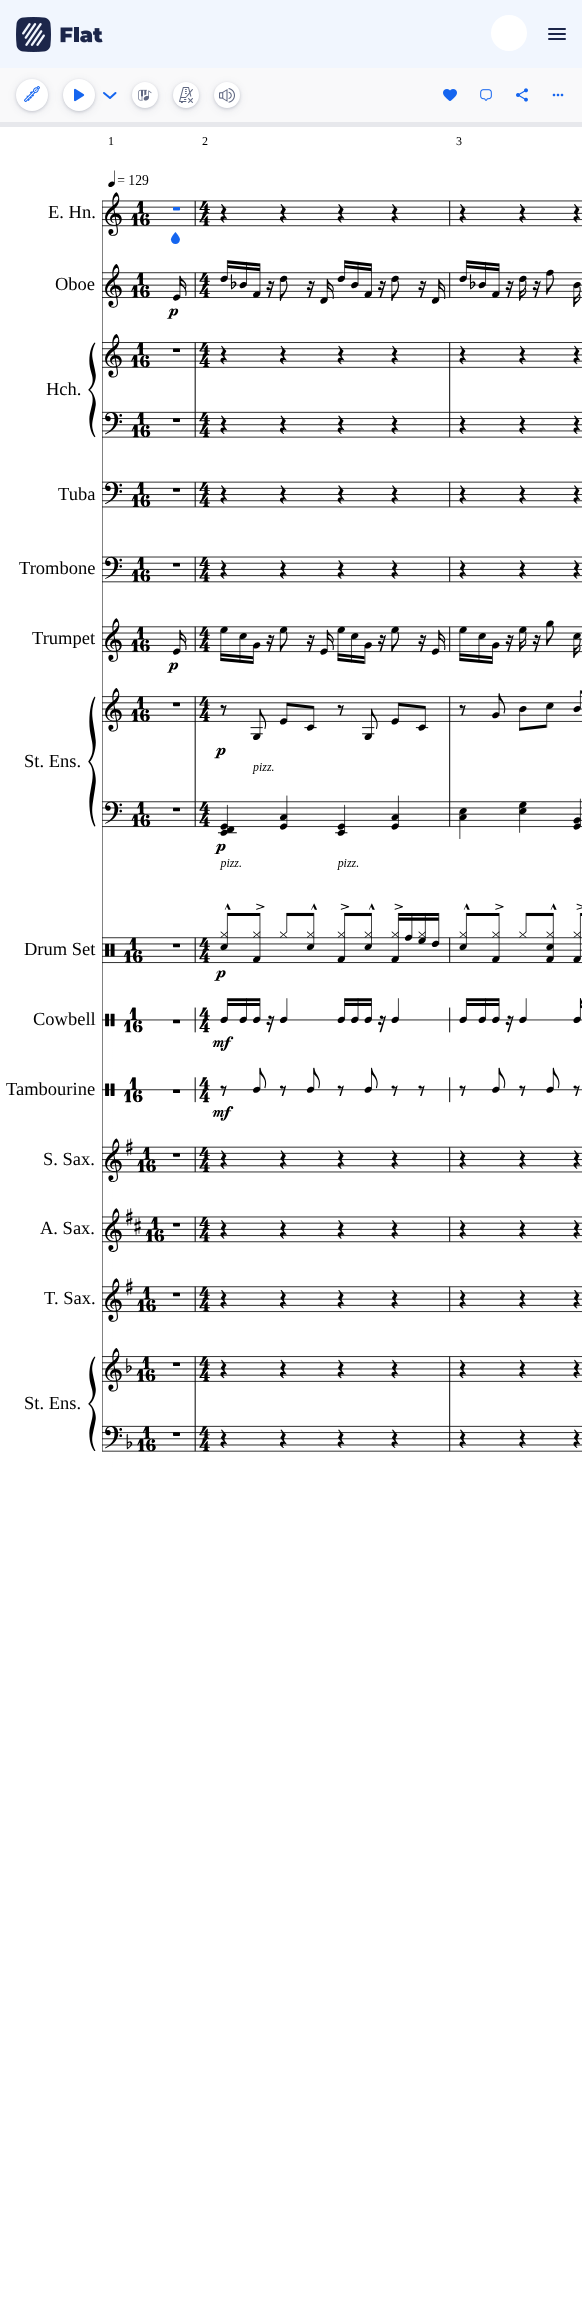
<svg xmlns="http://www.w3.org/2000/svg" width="582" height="2322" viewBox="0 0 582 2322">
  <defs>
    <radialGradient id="g1" gradientUnits="userSpaceOnUse" cx="0" cy="0" r="1" gradientTransform="matrix(11 0 0 1088 102 1240)"><stop offset="0" stop-color="rgb(145,145,145)"/><stop offset="1" stop-color="rgb(255,255,255)"/></radialGradient>
    <linearGradient id="g2" gradientUnits="userSpaceOnUse" x1="102" y1="1240" x2="582" y2="1240"><stop offset="0" stop-color="rgb(255,255,255)"/><stop offset="0.02" stop-color="rgb(255,255,255)"/><stop offset="0.04" stop-color="rgb(255,255,255)" stop-opacity="0.5"/></linearGradient>
  </defs>
  <rect width="100%" height="100%" fill="rgb(255,255,255)"/>
  <rect x="0" y="0" width="582" height="68" fill="rgb(241,246,254)"/>
  <image x="16" y="17" width="87" height="35" href="pic1.png"/>
  <circle cx="509" cy="33" r="18" fill="rgb(255,255,255)"/>
  <rect x="548" y="28" width="18" height="2" rx="1" fill="rgb(28,38,74)"/>
  <rect x="548" y="33" width="18" height="2" rx="1" fill="rgb(28,38,74)"/>
  <rect x="548" y="38" width="18" height="2" rx="1" fill="rgb(28,38,74)"/>
  <rect x="0" y="68" width="582" height="54" fill="rgb(249,249,250)"/>
  <rect x="63" y="81" width="32" height="32" rx="16" fill="rgba(40,48,79,0.1)" filter="blur(4px)"/>
  <rect x="132" y="84" width="26" height="26" rx="13" fill="rgba(40,48,79,0.1)" filter="blur(4px)"/>
  <rect x="173" y="84" width="26" height="26" rx="13" fill="rgba(40,48,79,0.1)" filter="blur(4px)"/>
  <rect x="214" y="84" width="26" height="26" rx="13" fill="rgba(40,48,79,0.1)" filter="blur(4px)"/>
  <rect x="0" y="122" width="582" height="5" fill="rgb(231,232,236)"/>
  <rect x="16" y="80" width="32" height="32" rx="16" fill="rgba(40,48,79,0.1)" filter="blur(4px)"/>
  <rect x="16" y="80" width="32" height="32" rx="16" fill="rgba(40,48,79,0.2)" filter="blur(1.5px)"/>
  <circle cx="32" cy="95" r="16" fill="rgb(255,255,255)"/>
  <image x="24" y="86" width="16" height="16" href="pic2.png"/>
  <rect x="63" y="80" width="32" height="32" rx="16" fill="rgba(40,48,79,0.2)" filter="blur(1.5px)"/>
  <circle cx="79" cy="95" r="16" fill="rgb(255,255,255)"/>
  <image x="74" y="88" width="11" height="14" href="pic3.png"/>
  <path d="M104 93L110 98L115.5 93" fill="none" stroke="rgb(21,101,239)" stroke-width="2" stroke-linecap="round" stroke-linejoin="round"/>
  <rect x="132" y="83" width="26" height="26" rx="13" fill="rgba(40,48,79,0.2)" filter="blur(1.5px)"/>
  <circle cx="145" cy="95" r="13" fill="rgb(255,255,255)"/>
  <image x="138" y="89" width="14" height="12" href="pic4.png"/>
  <rect x="173" y="83" width="26" height="26" rx="13" fill="rgba(40,48,79,0.2)" filter="blur(1.5px)"/>
  <circle cx="186" cy="95" r="13" fill="rgb(255,255,255)"/>
  <image x="179" y="87" width="14" height="16" href="pic5.png"/>
  <rect x="214" y="83" width="26" height="26" rx="13" fill="rgba(40,48,79,0.2)" filter="blur(1.5px)"/>
  <circle cx="227" cy="95" r="13" fill="rgb(255,255,255)"/>
  <image x="219" y="88" width="16" height="15" href="pic6.png"/>
  <image x="443" y="89" width="14" height="12" href="pic7.png"/>
  <image x="480" y="89" width="12" height="12" href="pic8.png"/>
  <image x="516" y="88" width="12" height="14" href="pic9.png"/>
  <image x="552" y="93" width="12" height="4" href="pic10.png"/>
  <g font-family="Liberation Serif" font-size="12" fill="rgb(0,0,0)">
    <text x="108" y="145">1</text>
    <text x="202" y="145">2</text>
    <text x="456" y="145">3</text>
  </g>
  <rect x="112" y="1011" width="1" height="458" fill="url(#g1)"/>
  <rect x="112" y="1011" width="1" height="458" fill="url(#g2)"/>
  <image x="102" y="170" width="480" height="1282" href="pic11.png"/>
  <image x="88" y="342" width="8" height="1109" href="pic12.png"/>
  <g font-family="Liberation Serif" font-size="18.5" fill="rgb(0,0,0)">
    <text x="48" y="218">E. Hn.</text>
    <text x="55" y="290">Oboe</text>
    <text x="46" y="395">Hch.</text>
    <text x="58" y="500">Tuba</text>
    <text x="19" y="574">Trombone</text>
    <text x="32" y="644">Trumpet</text>
    <text x="24" y="767">St. Ens.</text>
    <text x="24" y="955">Drum Set</text>
    <text x="33" y="1025">Cowbell</text>
    <text x="6" y="1095">Tambourine</text>
    <text x="43" y="1165">S. Sax.</text>
    <text x="40" y="1234">A. Sax.</text>
    <text x="44" y="1304">T. Sax.</text>
    <text x="24" y="1409">St. Ens.</text>
  </g>
</svg>
